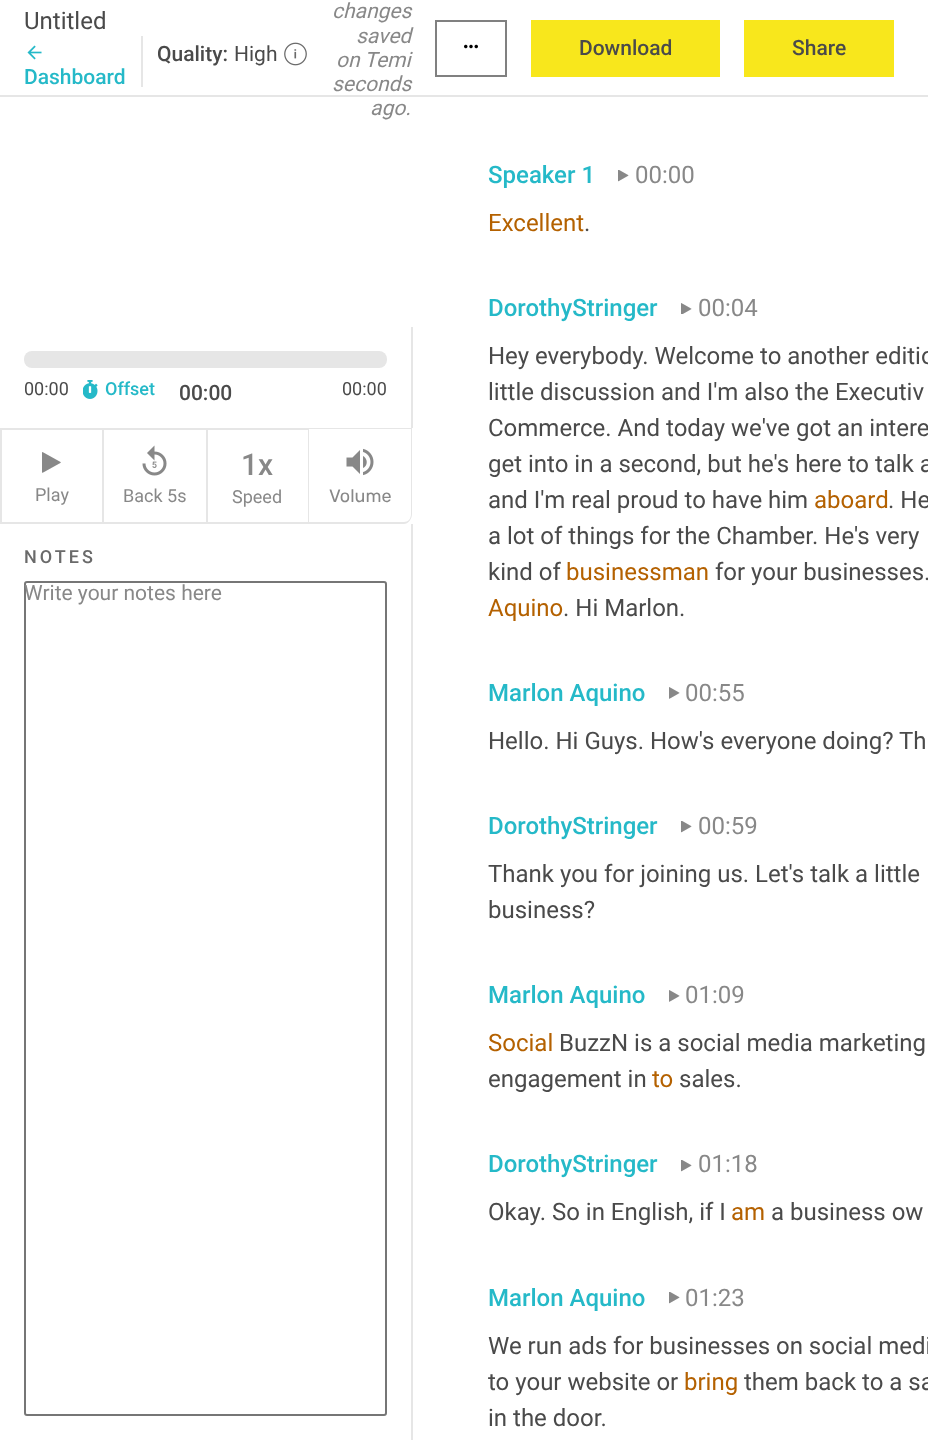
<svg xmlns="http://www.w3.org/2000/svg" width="928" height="1440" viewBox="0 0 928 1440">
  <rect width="100%" height="100%" fill="rgb(255,255,255)"/>
  <rect x="0" y="95" width="928" height="2" fill="rgb(230,230,230)"/>
  <text x="24" y="29" font-family="Roboto" font-size="24" fill="rgb(74,74,74)">Untitled</text>
  <rect x="141" y="36" width="2" height="51" fill="rgb(230,230,230)"/>
  <text x="157" y="61" font-family="Roboto" font-size="21" font-weight="500" fill="rgb(74,74,74)">Quality:</text>
  <text x="234" y="61" font-family="Roboto" font-size="21" fill="rgb(74,74,74)">High</text>
  <image x="284" y="42" width="23" height="24" href="pic1.png"/>
  <image x="27" y="45" width="15" height="15" href="pic2.png"/>
  <text x="24" y="84" font-family="Roboto" font-size="21" font-weight="500" fill="rgb(37,185,200)">Dashboard</text>
  <g font-family="Roboto" font-size="21" font-style="italic" fill="rgb(136,136,136)">
    <text x="332" y="18">changes</text>
    <text x="356" y="43">saved</text>
    <text x="336" y="67">on Temi</text>
    <text x="332" y="91">seconds</text>
    <text x="370" y="115">ago.</text>
  </g>
  <rect x="436" y="21" width="70" height="55" fill="none" stroke="rgb(128,128,128)" stroke-width="2"/>
  <image x="464" y="44" width="14" height="5" href="pic3.png"/>
  <rect x="531" y="20" width="189" height="57" fill="rgb(248,231,28)"/>
  <text x="579" y="55" font-family="Roboto" font-size="21" font-weight="500" fill="rgb(74,74,74)">Download</text>
  <rect x="744" y="20" width="150" height="57" fill="rgb(248,231,28)"/>
  <text x="792" y="55" font-family="Roboto" font-size="21" font-weight="500" fill="rgb(74,74,74)">Share</text>
  <rect x="411" y="327" width="2" height="101" fill="rgb(230,230,230)"/>
  <rect x="24" y="351" width="363" height="17" rx="8" fill="rgb(230,230,230)"/>
  <text x="24" y="395" font-family="Roboto" font-size="18" fill="rgb(74,74,74)">00:00</text>
  <image x="83" y="380" width="15" height="19" href="pic4.png"/>
  <text x="105" y="395" font-family="Roboto" font-size="18" font-weight="500" fill="rgb(37,185,200)">Offset</text>
  <text x="179" y="400" font-family="Roboto" font-size="21" font-weight="500" fill="rgb(74,74,74)">00:00</text>
  <text x="342" y="395" font-family="Roboto" font-size="18" fill="rgb(74,74,74)">00:00</text>
  <rect x="1" y="429" width="102" height="94" fill="none" stroke="rgb(230,230,230)" stroke-width="2"/>
  <image x="42" y="452" width="19" height="21" href="pic5.png"/>
  <text x="35" y="501" font-family="Roboto" font-size="18" fill="rgb(136,136,136)">Play</text>
  <rect x="104" y="428" width="103" height="2" fill="rgb(230,230,230)"/>
  <rect x="206" y="428" width="2" height="96" fill="rgb(230,230,230)"/>
  <rect x="104" y="522" width="103" height="2" fill="rgb(230,230,230)"/>
  <image x="142" y="445" width="25" height="31" href="pic6.png"/>
  <text x="123" y="502" font-family="Roboto" font-size="18" fill="rgb(136,136,136)">Back 5s</text>
  <rect x="207" y="428" width="102" height="2" fill="rgb(230,230,230)"/>
  <rect x="308" y="428" width="1" height="96" fill="rgb(230,230,230)"/>
  <rect x="207" y="522" width="102" height="2" fill="rgb(230,230,230)"/>
  <text x="241" y="475" font-family="Roboto" font-size="30" font-weight="500" fill="rgb(136,136,136)">1x</text>
  <text x="232" y="503" font-family="Roboto" font-size="18" fill="rgb(136,136,136)">Speed</text>
  <path d="M309 428H412V514C412 519 408 524 404 524H309ZM309 429H411V514C411 519 408 522 404 522H309Z" fill="rgb(230,230,230)" fill-rule="evenodd"/>
  <image x="346" y="448" width="28" height="28" href="pic7.png"/>
  <text x="329" y="502" font-family="Rubik" font-size="18" fill="rgb(136,136,136)">Volume</text>
  <rect x="411" y="524" width="2" height="916" fill="rgb(230,230,230)"/>
  <text x="24" y="563" font-family="Roboto" font-size="18" font-weight="500" letter-spacing="3" fill="rgb(106,106,106)">NOTES</text>
  <rect x="25" y="582" width="361" height="833" rx="2" fill="none" stroke="rgb(118,118,118)" stroke-width="2"/>
  <text x="24" y="600" font-family="Roboto" font-size="21" fill="rgb(136,136,136)">Write your notes here</text>
  <text x="488" y="183" font-family="Roboto" font-size="24" font-weight="500" fill="rgb(37,185,200)">Speaker 1</text>
  <image x="618" y="170" width="11" height="12" href="pic8.png"/>
  <text x="635" y="183" font-family="Roboto" font-size="24" fill="rgb(136,136,136)">00:00</text>
  <text x="488" y="231" font-family="Roboto" font-size="24" fill="rgb(180,97,0)">Excellent</text>
  <text x="584" y="231" font-family="Roboto" font-size="24" fill="rgb(74,74,74)">.</text>
  <text x="488" y="316" font-family="Roboto" font-size="24" font-weight="500" fill="rgb(37,185,200)">DorothyStringer</text>
  <image x="681" y="303" width="11" height="11" href="pic9.png"/>
  <text x="698" y="316" font-family="Roboto" font-size="24" fill="rgb(136,136,136)">00:04</text>
  <g font-family="Roboto" font-size="24" fill="rgb(74,74,74)">
    <text>
      <tspan x="488" y="364">Hey everybody. Welcome to another editio</tspan>
      <tspan x="488" y="400">little discussion and I'm also the Executiv</tspan>
      <tspan x="488" y="436">Commerce. And today we've got an intere</tspan>
      <tspan x="488" y="472">get into in a second, but he's here to talk a</tspan>
      <tspan x="488" y="508">and I'm real proud to have him</tspan>
    </text>
  </g>
  <text x="814" y="508" font-family="Roboto" font-size="24" fill="rgb(180,97,0)">aboard</text>
  <g font-family="Roboto" font-size="24" fill="rgb(74,74,74)">
    <text x="888" y="508">. He</text>
    <text>
      <tspan x="488" y="544">a lot of things for the Chamber. He's very</tspan>
      <tspan x="488" y="580">kind of</tspan>
    </text>
  </g>
  <text x="566" y="580" font-family="Roboto" font-size="24" fill="rgb(180,97,0)">businessman</text>
  <text x="715" y="580" font-family="Roboto" font-size="24" fill="rgb(74,74,74)">for your businesses.</text>
  <text x="488" y="616" font-family="Roboto" font-size="24" fill="rgb(180,97,0)">Aquino</text>
  <text x="563" y="616" font-family="Roboto" font-size="24" fill="rgb(74,74,74)">. Hi Marlon.</text>
  <text x="488" y="701" font-family="Roboto" font-size="24" font-weight="500" fill="rgb(37,185,200)">Marlon Aquino</text>
  <image x="669" y="687" width="11" height="12" href="pic10.png"/>
  <text x="685" y="701" font-family="Roboto" font-size="24" fill="rgb(136,136,136)">00:55</text>
  <text x="488" y="749" font-family="Roboto" font-size="24" fill="rgb(74,74,74)">Hello. Hi Guys. How's everyone doing? Th</text>
  <text x="488" y="834" font-family="Roboto" font-size="24" font-weight="500" fill="rgb(37,185,200)">DorothyStringer</text>
  <image x="681" y="821" width="11" height="12" href="pic8.png"/>
  <text x="698" y="834" font-family="Roboto" font-size="24" fill="rgb(136,136,136)">00:59</text>
  <g font-family="Roboto" font-size="24" fill="rgb(74,74,74)">
    <text>
      <tspan x="488" y="882">Thank you for joining us. Let's talk a little</tspan>
      <tspan x="488" y="918">business?</tspan>
    </text>
  </g>
  <text x="488" y="1003" font-family="Roboto" font-size="24" font-weight="500" fill="rgb(37,185,200)">Marlon Aquino</text>
  <image x="669" y="990" width="11" height="12" href="pic10.png"/>
  <text x="685" y="1003" font-family="Roboto" font-size="24" fill="rgb(136,136,136)">01:09</text>
  <text x="488" y="1051" font-family="Roboto" font-size="24" fill="rgb(180,97,0)">Social</text>
  <g font-family="Roboto" font-size="24" fill="rgb(74,74,74)">
    <text x="559" y="1051">BuzzN is a social media marketing</text>
    <text x="488" y="1087">engagement in</text>
  </g>
  <text x="652" y="1087" font-family="Roboto" font-size="24" fill="rgb(180,97,0)">to</text>
  <text x="679" y="1087" font-family="Roboto" font-size="24" fill="rgb(74,74,74)">sales.</text>
  <text x="488" y="1172" font-family="Roboto" font-size="24" font-weight="500" fill="rgb(37,185,200)">DorothyStringer</text>
  <image x="681" y="1160" width="11" height="12" href="pic8.png"/>
  <text x="698" y="1172" font-family="Roboto" font-size="24" fill="rgb(136,136,136)">01:18</text>
  <text x="488" y="1220" font-family="Roboto" font-size="24" fill="rgb(74,74,74)">Okay. So in English, if I</text>
  <text x="731" y="1220" font-family="Roboto" font-size="24" fill="rgb(180,97,0)">am</text>
  <text x="771" y="1220" font-family="Roboto" font-size="24" fill="rgb(74,74,74)">a business ow</text>
  <text x="488" y="1306" font-family="Roboto" font-size="24" font-weight="500" fill="rgb(37,185,200)">Marlon Aquino</text>
  <image x="669" y="1292" width="11" height="12" href="pic8.png"/>
  <text x="685" y="1306" font-family="Roboto" font-size="24" fill="rgb(136,136,136)">01:23</text>
  <g font-family="Roboto" font-size="24" fill="rgb(74,74,74)">
    <text>
      <tspan x="488" y="1354">We run ads for businesses on social medi</tspan>
      <tspan x="488" y="1390">to your website or</tspan>
    </text>
  </g>
  <text x="684" y="1390" font-family="Roboto" font-size="24" fill="rgb(180,97,0)">bring</text>
  <g font-family="Roboto" font-size="24" fill="rgb(74,74,74)">
    <text x="744" y="1390">them back to a sa</text>
    <text x="488" y="1426">in the door.</text>
  </g>
</svg>
